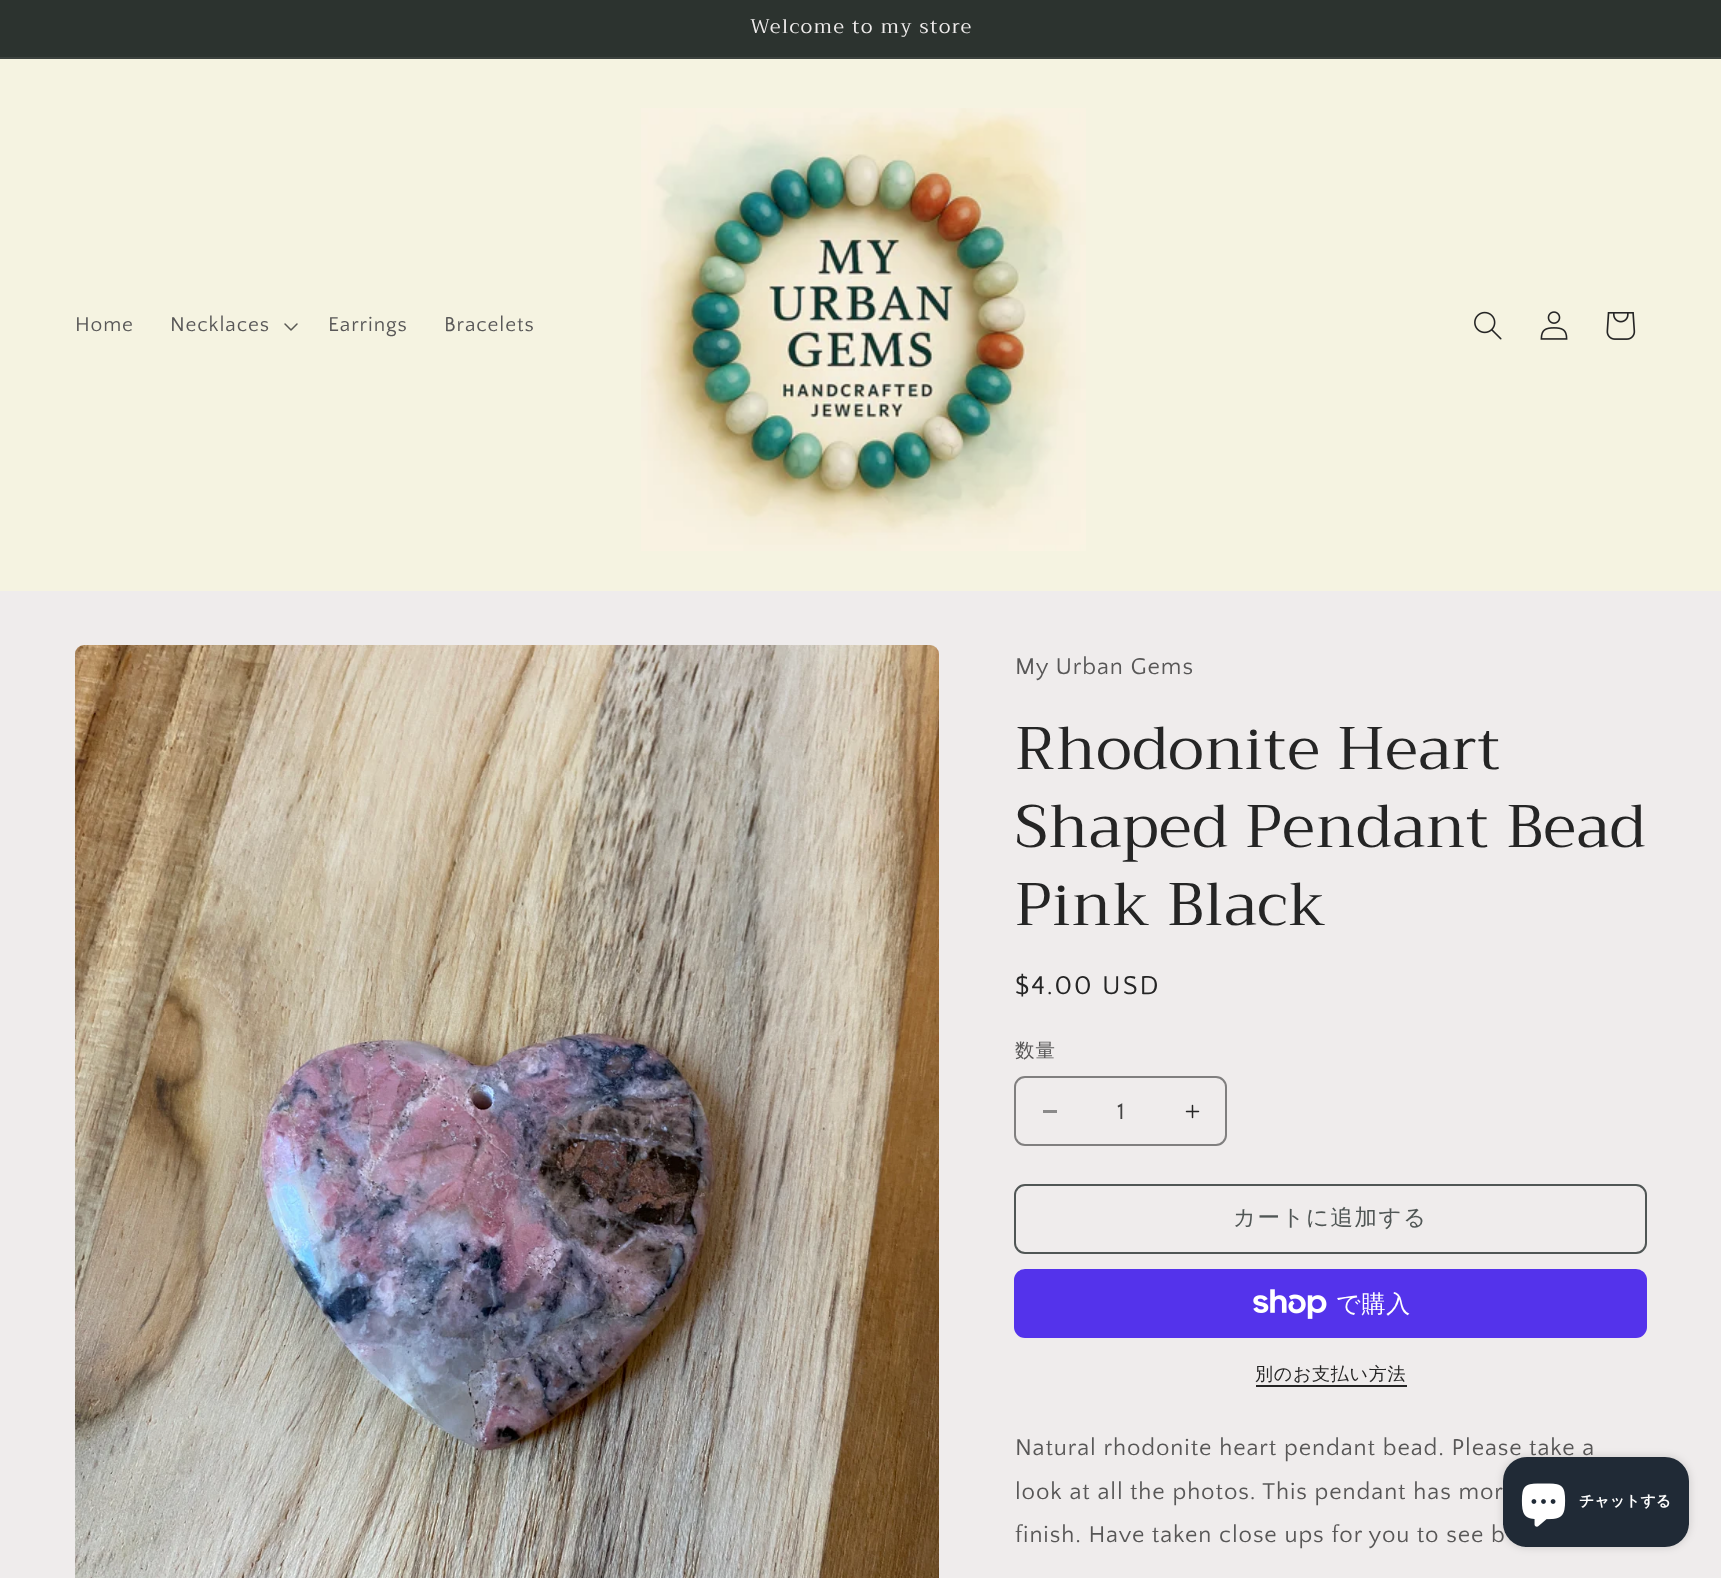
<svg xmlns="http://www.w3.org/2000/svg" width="1721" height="1578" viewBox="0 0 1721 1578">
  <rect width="100%" height="100%" fill="rgb(239,236,236)"/>
  <rect x="0" y="0" width="1721" height="57" fill="rgb(44,51,47)"/>
  <rect x="0" y="57" width="1721" height="2" fill="rgb(60,66,62)"/>
  <text x="750" y="33" font-family="Trirong" font-size="19.5" letter-spacing="1.5" fill="rgb(239,236,236)">Welcome to my store</text>
  <rect x="0" y="59" width="1721" height="532" fill="rgb(245,243,225)"/>
  <g font-family="Quattrocento Sans" font-size="21" letter-spacing="0.9" fill="rgb(88,87,87)">
    <text x="75" y="331">Home</text>
    <text x="170" y="331">Necklaces</text>
  </g>
  <image x="284" y="323" width="14" height="8" href="pic1.png"/>
  <g font-family="Quattrocento Sans" font-size="21" letter-spacing="0.9" fill="rgb(88,87,87)">
    <text x="328" y="331">Earrings</text>
    <text x="444" y="331">Bracelets</text>
  </g>
  <image x="641" y="108" width="445" height="443" href="pic2.png"/>
  <image x="1474" y="311" width="28" height="29" href="pic3.png"/>
  <image x="1540" y="311" width="28" height="29" href="pic4.png"/>
  <image x="1606" y="312" width="30" height="28" href="pic5.png"/>
  <image x="75" y="645" width="864" height="933" href="pic6.png"/>
  <text x="1015" y="674" font-family="Quattrocento Sans" font-size="24" letter-spacing="0.9" fill="rgb(88,87,87)">My Urban Gems</text>
  <g font-family="Trirong" font-size="60" letter-spacing="0.9" fill="rgb(37,37,37)">
    <text>
      <tspan x="1015" y="769">Rhodonite Heart</tspan>
      <tspan x="1015" y="847">Shaped Pendant Bead</tspan>
      <tspan x="1015" y="925">Pink Black</tspan>
    </text>
  </g>
  <text x="1015" y="994" font-family="Quattrocento Sans" font-size="27" letter-spacing="2" fill="rgb(37,37,37)">$4.00 USD</text>
  <text x="1015" y="1057" font-family="WenQuanYi Zen Hei" font-size="19.5" font-weight="500" letter-spacing="1" fill="rgb(88,87,87)">数量</text>
  <rect x="1043" y="1110" width="14" height="3" fill="rgb(138,137,137)"/>
  <image x="1185" y="1104" width="15" height="15" href="pic7.png"/>
  <rect x="1015" y="1077" width="211" height="68" rx="10" fill="none" stroke="rgb(128,127,127)" stroke-width="2"/>
  <text x="1117" y="1119" font-family="Quattrocento Sans" font-size="24" fill="rgb(67,67,67)">1</text>
  <rect x="1015" y="1185" width="631" height="68" rx="10" fill="none" stroke="rgb(80,86,85)" stroke-width="2"/>
  <text x="1233" y="1225" font-family="WenQuanYi Zen Hei" font-size="22.5" font-weight="500" letter-spacing="1.5" fill="rgb(80,86,85)">カートに追加する</text>
  <rect x="1014" y="1269" width="633" height="69" rx="11" fill="rgb(84,51,235)"/>
  <image x="1253" y="1289" width="74" height="30" href="pic8.png"/>
  <text x="1336" y="1312" font-family="WenQuanYi Zen Hei" font-size="24" font-weight="500" letter-spacing="0.9" fill="rgb(255,255,255)">で購入</text>
  <text x="1255" y="1380" font-family="WenQuanYi Zen Hei" font-size="18" font-weight="500" letter-spacing="0.75" fill="rgb(37,37,37)">別のお支払い方法</text>
  <rect x="1256" y="1385" width="151" height="2" fill="rgb(37,37,37)"/>
  <g font-family="Quattrocento Sans" font-size="24" letter-spacing="0.9" fill="rgb(88,87,87)">
    <text>
      <tspan x="1015" y="1455">Natural rhodonite heart pendant bead. Please take a</tspan>
      <tspan x="1015" y="1499">look at all the photos. This pendant has mor</tspan>
      <tspan x="1015" y="1542">finish. Have taken close ups for you to see b</tspan>
    </text>
  </g>
  <rect x="1503" y="1457" width="186" height="90" rx="24" fill="rgba(0,0,0,0.15)" filter="blur(4px)"/>
  <rect x="1503" y="1457" width="186" height="90" rx="24" fill="rgb(32,42,54)"/>
  <image x="1521" y="1483" width="45" height="44" href="pic9.png"/>
  <text x="1579" y="1506" font-family="WenQuanYi Zen Hei" font-size="15" font-weight="bold" fill="rgb(255,255,255)">チャットする</text>
</svg>
